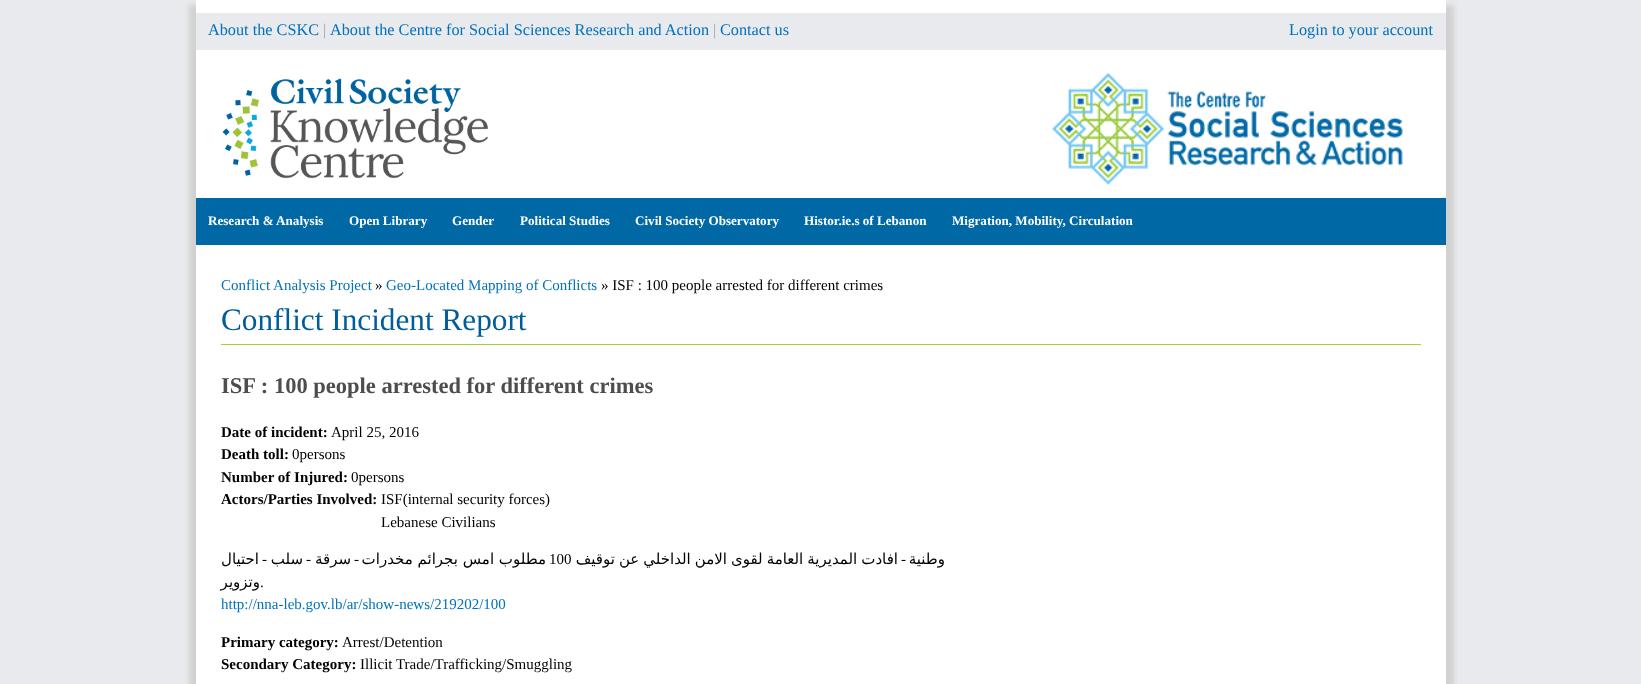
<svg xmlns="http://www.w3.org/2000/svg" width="1641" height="684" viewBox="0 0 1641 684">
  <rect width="100%" height="100%" fill="rgb(233,234,237)"/>
  <rect x="189" y="5" width="1240" height="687" fill="rgb(209,209,209)" filter="blur(2.5px)"/>
  <rect x="214" y="5" width="1240" height="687" fill="rgb(209,209,209)" filter="blur(2.5px)"/>
  <rect x="196" y="0" width="1250" height="684" fill="rgb(255,255,255)"/>
  <rect x="196" y="13" width="1250" height="37" fill="rgb(233,234,237)"/>
  <text x="208" y="35" font-family="Liberation Serif" font-size="16.25" fill="rgb(0,113,188)">About the CSKC</text>
  <text x="323" y="35" font-family="Liberation Serif" font-size="16.25" fill="rgb(166,166,166)">|</text>
  <text x="330" y="35" font-family="Liberation Serif" font-size="16.25" fill="rgb(0,113,188)">About the Centre for Social Sciences Research and Action</text>
  <text x="713" y="35" font-family="Liberation Serif" font-size="16.25" fill="rgb(166,166,166)">|</text>
  <g font-family="Liberation Serif" font-size="16.25" fill="rgb(0,113,188)">
    <text x="720" y="35">Contact us</text>
    <text x="1289" y="35">Login to your account</text>
  </g>
  <image x="222" y="78" width="267" height="101" href="pic1.png"/>
  <image x="1052" y="72" width="351" height="113" href="pic2.png"/>
  <rect x="196" y="198" width="1250" height="47" fill="rgb(0,104,164)"/>
  <g font-family="Liberation Serif" font-size="13.1" font-weight="bold" fill="rgb(255,255,255)">
    <text x="208" y="225">Research &amp; Analysis</text>
    <text x="349" y="225">Open Library</text>
    <text x="452" y="225">Gender</text>
    <text x="520" y="225">Political Studies</text>
    <text x="635" y="225">Civil Society Observatory</text>
    <text x="804" y="225">Histor.ie.s of Lebanon</text>
    <text x="952" y="225">Migration, Mobility, Circulation</text>
  </g>
  <text x="221" y="290" font-family="Liberation Serif" font-size="15" fill="rgb(0,113,188)">Conflict Analysis Project</text>
  <text x="375" y="290" font-family="Liberation Serif" font-size="15" fill="rgb(0,0,0)">»</text>
  <text x="386" y="290" font-family="Liberation Serif" font-size="15" fill="rgb(0,113,188)">Geo-Located Mapping of Conflicts</text>
  <text x="601" y="290" font-family="Liberation Serif" font-size="15" fill="rgb(0,0,0)">» ISF : 100 people arrested for different crimes</text>
  <rect x="221" y="344" width="1200" height="1" fill="rgb(174,203,58)"/>
  <text x="221" y="330" font-family="Liberation Serif" font-size="31.25" fill="rgb(0,93,156)">Conflict Incident Report</text>
  <text x="221" y="393" font-family="Liberation Serif" font-size="22.5" font-weight="bold" fill="rgb(77,77,77)">ISF : 100 people arrested for different crimes</text>
  <text x="221" y="437" font-family="Liberation Serif" font-size="15" font-weight="bold" fill="rgb(0,0,0)">Date of incident:</text>
  <text x="331" y="437" font-family="Liberation Serif" font-size="15" fill="rgb(0,0,0)">April 25, 2016</text>
  <text x="221" y="459" font-family="Liberation Serif" font-size="15" font-weight="bold" fill="rgb(0,0,0)">Death toll:</text>
  <text x="292" y="459" font-family="Liberation Serif" font-size="15" fill="rgb(0,0,0)">0persons</text>
  <text x="221" y="482" font-family="Liberation Serif" font-size="15" font-weight="bold" fill="rgb(0,0,0)">Number of Injured:</text>
  <text x="351" y="482" font-family="Liberation Serif" font-size="15" fill="rgb(0,0,0)">0persons</text>
  <text x="221" y="504" font-family="Liberation Serif" font-size="15" font-weight="bold" fill="rgb(0,0,0)">Actors/Parties Involved:</text>
  <g font-family="Liberation Serif" font-size="15" fill="rgb(0,0,0)">
    <text>
      <tspan x="381" y="504">ISF(internal security forces)</tspan>
      <tspan x="381" y="527">Lebanese Civilians</tspan>
    </text>
  </g>
  <text x="259" y="564" font-family="DejaVu Sans" font-size="15" direction="rtl" fill="rgb(0,0,0)">احتيال</text>
  <text x="267" y="564" font-family="Liberation Serif" font-size="15" direction="rtl" fill="rgb(0,0,0)">-</text>
  <text x="303" y="564" font-family="DejaVu Sans" font-size="15" direction="rtl" fill="rgb(0,0,0)">سلب</text>
  <text x="311" y="564" font-family="Liberation Serif" font-size="15" direction="rtl" fill="rgb(0,0,0)">-</text>
  <text x="351" y="564" font-family="DejaVu Sans" font-size="15" direction="rtl" fill="rgb(0,0,0)">سرقة</text>
  <text x="359" y="564" font-family="Liberation Serif" font-size="15" direction="rtl" fill="rgb(0,0,0)">-</text>
  <text x="546" y="564" font-family="DejaVu Sans" font-size="15" direction="rtl" fill="rgb(0,0,0)">مطلوب امس بجرائم مخدرات</text>
  <text x="549" y="564" font-family="Liberation Serif" font-size="15" fill="rgb(0,0,0)">100</text>
  <text x="898" y="564" word-spacing="-0.75" font-family="DejaVu Sans" font-size="15" direction="rtl" fill="rgb(0,0,0)">افادت المديرية العامة لقوى الامن الداخلي عن توقيف</text>
  <text x="906" y="564" font-family="Liberation Serif" font-size="15" direction="rtl" fill="rgb(0,0,0)">-</text>
  <g font-family="DejaVu Sans" font-size="15" direction="rtl" fill="rgb(0,0,0)">
    <text x="945" y="564">وطنية</text>
    <text x="260" y="587">وتزوير</text>
  </g>
  <text x="260" y="587" font-family="Liberation Serif" font-size="15" fill="rgb(0,0,0)">.</text>
  <text x="221" y="609" font-family="Liberation Serif" font-size="15" fill="rgb(0,113,188)">http://nna-leb.gov.lb/ar/show-news/219202/100</text>
  <text x="221" y="647" font-family="Liberation Serif" font-size="15" font-weight="bold" fill="rgb(0,0,0)">Primary category:</text>
  <text x="342" y="647" font-family="Liberation Serif" font-size="15" fill="rgb(0,0,0)">Arrest/Detention</text>
  <text x="221" y="669" font-family="Liberation Serif" font-size="15" font-weight="bold" fill="rgb(0,0,0)">Secondary Category:</text>
  <text x="360" y="669" font-family="Liberation Serif" font-size="15" fill="rgb(0,0,0)">Illicit Trade/Trafficking/Smuggling</text>
</svg>
